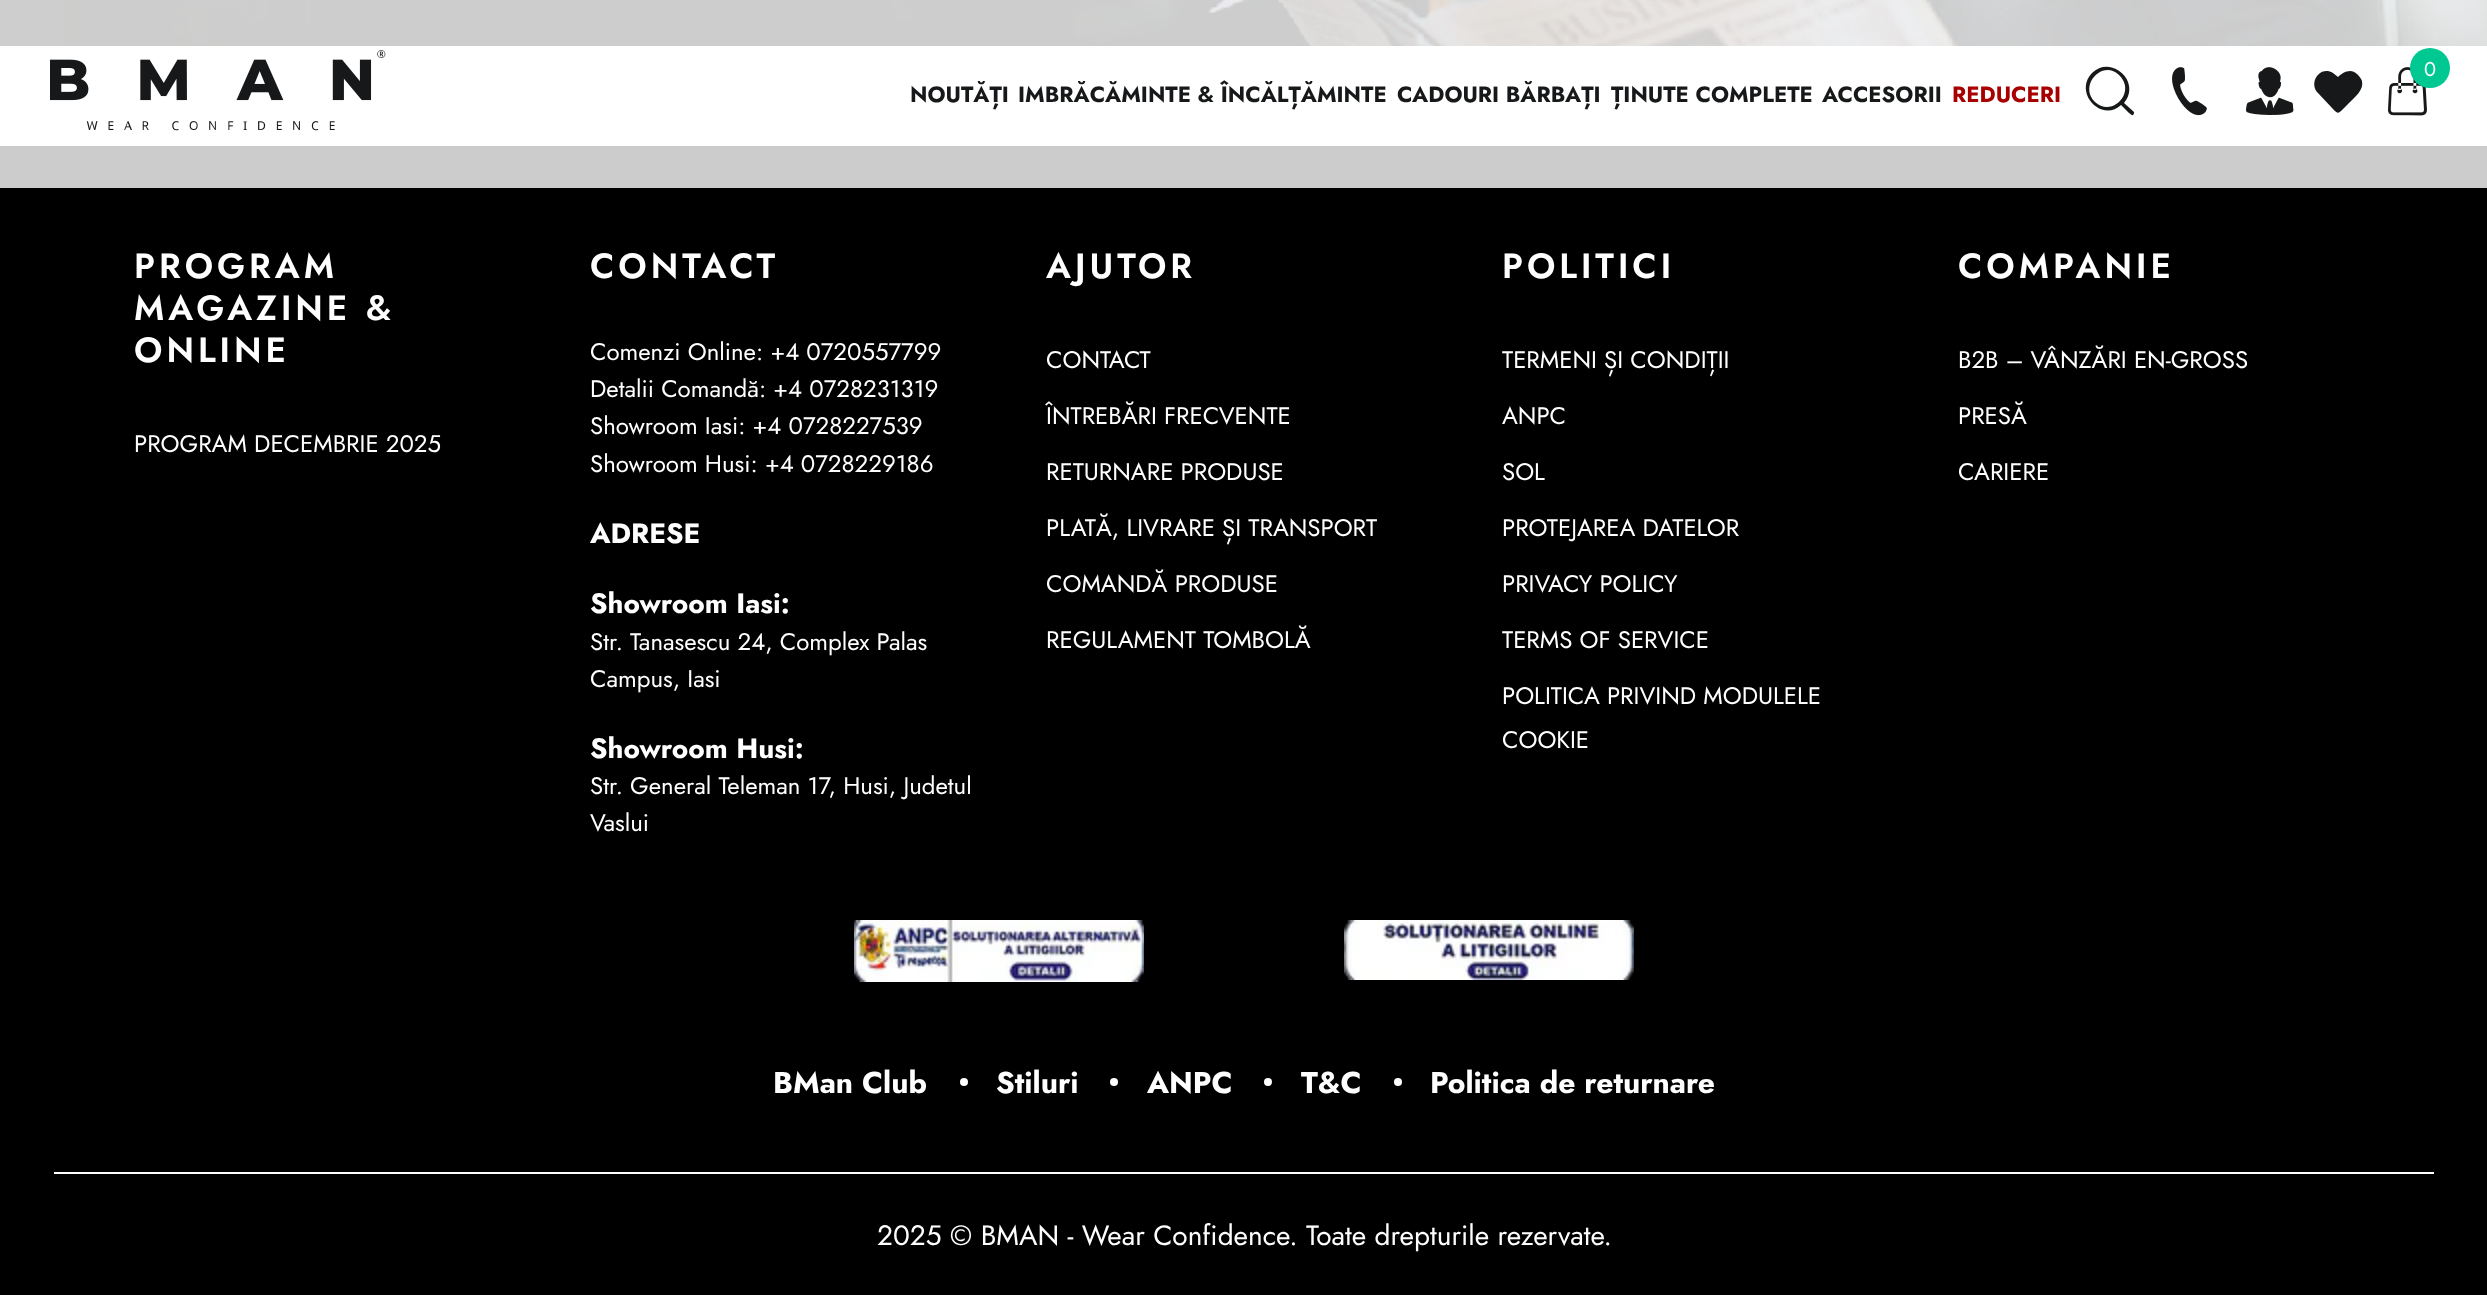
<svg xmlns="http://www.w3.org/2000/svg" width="2487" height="1295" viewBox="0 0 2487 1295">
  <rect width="100%" height="100%" fill="rgb(255,255,255)"/>
  <image x="50" y="50" width="336" height="81" href="pic1.png"/>
  <path d="M2095 102C2078 85 2103 59 2119 75C2137 92 2112 118 2095 102ZM2134 112L2124 103C2142 82 2111 54 2092 73C2073 93 2102 123 2121 105L2129 113C2131 114 2132 116 2133 115C2134 114 2134 113 2134 112Z" fill="rgb(23,24,25)"/>
  <image x="2172" y="67" width="35" height="49" href="pic2.png"/>
  <image x="2246" y="67" width="48" height="48" href="pic3.png"/>
  <path d="M2357 74C2351 68 2343 72 2338 77L2333 73C2320 65 2308 83 2318 93L2333 109C2338 114 2338 114 2343 109L2349 103C2355 97 2364 90 2362 81C2361 78 2359 76 2357 74Z" fill="rgb(23,24,25)"/>
  <image x="2388" y="67" width="39" height="49" href="pic4.png"/>
  <circle cx="2430" cy="68" r="20" fill="rgb(0,200,146)"/>
  <text x="2424" y="76" font-family="Jost" font-size="20" fill="rgb(255,255,255)">0</text>
  <g font-family="Jost" font-size="22" font-weight="bold" fill="rgb(23,24,25)">
    <text x="910" y="102">NOUTĂȚI</text>
    <text x="1018" y="102">IMBRĂCĂMINTE &amp; ÎNCĂLȚĂMINTE</text>
    <text x="1397" y="102">CADOURI BĂRBAȚI</text>
    <text x="1611" y="102">ȚINUTE COMPLETE</text>
    <text x="1822" y="102">ACCESORII</text>
  </g>
  <text x="1952" y="102" font-family="Jost" font-size="22" font-weight="bold" fill="rgb(168,0,0)">REDUCERI</text>
  <image x="0" y="0" width="2487" height="46" href="pic5.png"/>
  <rect x="0" y="188" width="2487" height="1107" fill="rgb(0,0,0)"/>
  <rect x="0" y="146" width="2487" height="42" fill="rgb(204,204,204)"/>
  <g font-family="Jost" font-size="35" font-weight="600" letter-spacing="4" fill="rgb(255,255,255)">
    <text>
      <tspan x="134" y="278">PROGRAM</tspan>
      <tspan x="134" y="320">MAGAZINE &amp;</tspan>
      <tspan x="134" y="362">ONLINE</tspan>
    </text>
  </g>
  <text x="134" y="452" font-family="Jost" font-size="24" fill="rgb(255,255,255)">PROGRAM DECEMBRIE 2025</text>
  <text x="590" y="278" font-family="Jost" font-size="35" font-weight="600" letter-spacing="4" fill="rgb(255,255,255)">CONTACT</text>
  <g font-family="Jost" font-size="24" fill="rgb(255,255,255)">
    <text>
      <tspan x="590" y="360">Comenzi Online: +4 0720557799</tspan>
      <tspan x="590" y="397">Detalii Comandă: +4 0728231319</tspan>
      <tspan x="590" y="434">Showroom Iasi: +4 0728227539</tspan>
      <tspan x="590" y="472">Showroom Husi: +4 0728229186</tspan>
    </text>
  </g>
  <g font-family="Jost" font-size="28" font-weight="bold" fill="rgb(255,255,255)">
    <text x="590" y="543">ADRESE</text>
    <text x="590" y="613">Showroom Iasi:</text>
  </g>
  <g font-family="Jost" font-size="24" fill="rgb(255,255,255)">
    <text>
      <tspan x="590" y="650">Str. Tanasescu 24, Complex Palas</tspan>
      <tspan x="590" y="687">Campus, Iasi</tspan>
    </text>
  </g>
  <text x="590" y="758" font-family="Jost" font-size="28" font-weight="bold" fill="rgb(255,255,255)">Showroom Husi:</text>
  <g font-family="Jost" font-size="24" fill="rgb(255,255,255)">
    <text>
      <tspan x="590" y="794">Str. General Teleman 17, Husi, Judetul</tspan>
      <tspan x="590" y="831">Vaslui</tspan>
    </text>
  </g>
  <text x="1046" y="278" font-family="Jost" font-size="35" font-weight="600" letter-spacing="4" fill="rgb(255,255,255)">AJUTOR</text>
  <g font-family="Jost" font-size="24" fill="rgb(255,255,255)">
    <text x="1046" y="368">CONTACT</text>
    <text x="1046" y="424">ÎNTREBĂRI FRECVENTE</text>
    <text x="1046" y="480">RETURNARE PRODUSE</text>
    <text x="1046" y="536">PLATĂ, LIVRARE ȘI TRANSPORT</text>
    <text x="1046" y="592">COMANDĂ PRODUSE</text>
    <text x="1046" y="648">REGULAMENT TOMBOLĂ</text>
  </g>
  <text x="1502" y="278" font-family="Jost" font-size="35" font-weight="600" letter-spacing="4" fill="rgb(255,255,255)">POLITICI</text>
  <g font-family="Jost" font-size="24" fill="rgb(255,255,255)">
    <text x="1502" y="368">TERMENI ȘI CONDIȚII</text>
    <text x="1502" y="424">ANPC</text>
    <text x="1502" y="480">SOL</text>
    <text x="1502" y="536">PROTEJAREA DATELOR</text>
    <text x="1502" y="592">PRIVACY POLICY</text>
    <text x="1502" y="648">TERMS OF SERVICE</text>
    <text>
      <tspan x="1502" y="704">POLITICA PRIVIND MODULELE</tspan>
      <tspan x="1502" y="748">COOKIE</tspan>
    </text>
  </g>
  <text x="1958" y="278" font-family="Jost" font-size="35" font-weight="600" letter-spacing="4" fill="rgb(255,255,255)">COMPANIE</text>
  <g font-family="Jost" font-size="24" fill="rgb(255,255,255)">
    <text x="1958" y="368">B2B – VÂNZĂRI EN-GROSS</text>
    <text x="1958" y="424">PRESĂ</text>
    <text x="1958" y="480">CARIERE</text>
  </g>
  <image x="854" y="920" width="290" height="62" href="pic6.png"/>
  <image x="1344" y="920" width="290" height="60" href="pic7.png"/>
  <text x="773" y="1093" font-family="Jost" font-size="30" font-weight="bold" fill="rgb(255,255,255)">BMan Club</text>
  <circle cx="964" cy="1082" r="4" fill="rgb(255,255,255)"/>
  <text x="996" y="1093" font-family="Jost" font-size="30" font-weight="bold" fill="rgb(255,255,255)">Stiluri</text>
  <circle cx="1114" cy="1082" r="4" fill="rgb(255,255,255)"/>
  <text x="1147" y="1093" font-family="Jost" font-size="30" font-weight="bold" fill="rgb(255,255,255)">ANPC</text>
  <circle cx="1268" cy="1082" r="4" fill="rgb(255,255,255)"/>
  <text x="1301" y="1093" font-family="Jost" font-size="30" font-weight="bold" fill="rgb(255,255,255)">T&amp;C</text>
  <circle cx="1398" cy="1082" r="4" fill="rgb(255,255,255)"/>
  <text x="1430" y="1093" font-family="Jost" font-size="30" font-weight="bold" fill="rgb(255,255,255)">Politica de returnare</text>
  <rect x="54" y="1172" width="2380" height="2" fill="rgb(255,255,255)"/>
  <text x="877" y="1245" font-family="Jost" font-size="28" fill="rgb(255,255,255)">2025 © BMAN - Wear Confidence. Toate drepturile rezervate.</text>
</svg>
